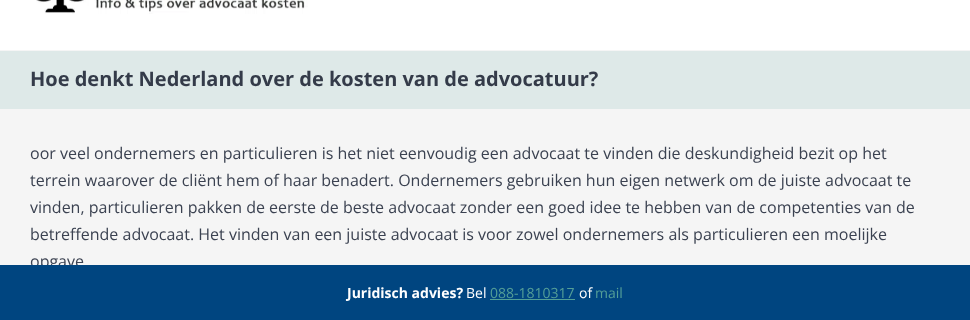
<svg xmlns="http://www.w3.org/2000/svg" width="970" height="320" viewBox="0 0 970 320">
  <rect width="100%" height="100%" fill="rgb(245,245,245)"/>
  <rect x="0" y="0" width="970" height="50" fill="rgb(255,255,255)"/>
  <image x="36" y="0" width="272" height="14" href="pic1.png"/>
  <rect x="0" y="51" width="970" height="58" fill="rgb(222,233,232)"/>
  <text x="30" y="86" font-family="Open Sans" font-size="20" font-weight="bold" fill="rgb(52,59,73)">Hoe denkt Nederland over de kosten van de advocatuur?</text>
  <g font-family="Open Sans" font-size="16" fill="rgb(59,66,81)">
    <text>
      <tspan x="30" y="159">oor veel ondernemers en particulieren is het niet eenvoudig een advocaat te vinden die deskundigheid bezit op het</tspan>
      <tspan x="30" y="186">terrein waarover de cliënt hem of haar benadert. Ondernemers gebruiken hun eigen netwerk om de juiste advocaat te</tspan>
      <tspan x="30" y="213">vinden, particulieren pakken de eerste de beste advocaat zonder een goed idee te hebben van de competenties van de</tspan>
      <tspan x="30" y="240">betreffende advocaat. Het vinden van een juiste advocaat is voor zowel ondernemers als particulieren een moelijke</tspan>
      <tspan x="30" y="267">opgave</tspan>
    </text>
  </g>
  <rect x="0" y="265" width="970" height="55" fill="rgb(0,69,128)"/>
  <text x="347" y="298" font-family="Open Sans" font-size="14" font-weight="bold" fill="rgb(255,255,255)">Juridisch advies?</text>
  <text x="466" y="298" font-family="Open Sans" font-size="14" fill="rgb(255,255,255)">Bel</text>
  <text x="490" y="298" font-family="Open Sans" font-size="14" fill="rgb(84,159,151)">088-1810317</text>
  <rect x="490" y="299" width="85" height="1" fill="rgb(84,159,151)"/>
  <text x="579" y="298" font-family="Open Sans" font-size="14" fill="rgb(255,255,255)">of</text>
  <text x="595" y="298" font-family="Open Sans" font-size="14" fill="rgb(84,159,151)">mail</text>
</svg>
